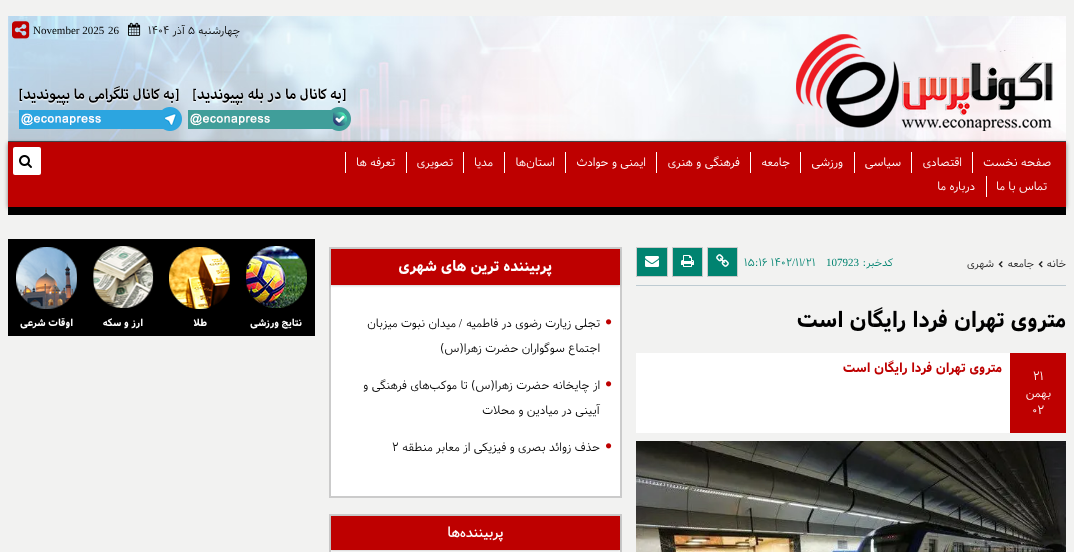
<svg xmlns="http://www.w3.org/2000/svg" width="1074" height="552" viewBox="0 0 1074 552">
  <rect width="100%" height="100%" fill="rgb(242,242,241)"/>
  <rect x="8" y="143" width="1058" height="65" fill="rgba(0,0,0,0.48)" filter="blur(2px)"/>
  <image x="8" y="16" width="1058" height="126" href="pic1.png"/>
  <text x="240" y="34" font-family="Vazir" font-size="11" font-weight="300" direction="rtl" fill="rgb(0,0,0)">چهارشنبه</text>
  <text x="188" y="34" font-family="Vazir" font-size="11" font-weight="300" fill="rgb(0,0,0)">۵</text>
  <text x="185" y="34" font-family="Vazir" font-size="11" font-weight="300" direction="rtl" fill="rgb(0,0,0)">آذر</text>
  <text x="148" y="34" font-family="Vazir" font-size="11" font-weight="300" fill="rgb(0,0,0)">۱۴۰۴</text>
  <image x="128" y="22" width="13" height="14" href="pic2.png"/>
  <g font-family="Liberation Serif" font-size="11" fill="rgb(0,0,0)">
    <text x="108" y="34">26</text>
    <text x="33" y="34">November 2025</text>
  </g>
  <image x="12" y="21" width="18" height="18" href="pic3.png"/>
  <image x="188" y="88" width="163" height="43" href="pic4.png"/>
  <image x="18" y="86" width="164" height="45" href="pic5.png"/>
  <image x="796" y="34" width="257" height="97" href="pic6.png"/>
  <rect x="8" y="142" width="1058" height="65" fill="rgb(190,0,0)"/>
  <rect x="972" y="152" width="1" height="21" fill="rgb(255,255,255)"/>
  <text x="1051" y="166" font-family="Vazir" font-size="12" font-weight="300" direction="rtl" fill="rgb(255,255,255)">صفحه نخست</text>
  <rect x="911" y="152" width="1" height="21" fill="rgb(255,255,255)"/>
  <text x="962" y="166" font-family="Vazir" font-size="12" font-weight="300" direction="rtl" fill="rgb(255,255,255)">اقتصادی</text>
  <rect x="854" y="152" width="1" height="21" fill="rgb(255,255,255)"/>
  <text x="901" y="166" font-family="Vazir" font-size="12" font-weight="300" direction="rtl" fill="rgb(255,255,255)">سیاسی</text>
  <rect x="800" y="152" width="1" height="21" fill="rgb(255,255,255)"/>
  <text x="843" y="166" font-family="Vazir" font-size="12" font-weight="300" direction="rtl" fill="rgb(255,255,255)">ورزشی</text>
  <rect x="750" y="152" width="1" height="21" fill="rgb(255,255,255)"/>
  <text x="790" y="166" font-family="Vazir" font-size="12" font-weight="300" direction="rtl" fill="rgb(255,255,255)">جامعه</text>
  <rect x="656" y="152" width="1" height="21" fill="rgb(255,255,255)"/>
  <text x="740" y="166" font-family="Vazir" font-size="12" font-weight="300" direction="rtl" fill="rgb(255,255,255)">فرهنگی و هنری</text>
  <rect x="565" y="152" width="1" height="21" fill="rgb(255,255,255)"/>
  <text x="646" y="166" font-family="Vazir" font-size="12" font-weight="300" direction="rtl" fill="rgb(255,255,255)">ایمنی و حوادث</text>
  <rect x="504" y="152" width="1" height="21" fill="rgb(255,255,255)"/>
  <text x="555" y="166" font-family="Vazir" font-size="12" font-weight="300" direction="rtl" fill="rgb(255,255,255)">استان‌ها</text>
  <rect x="463" y="152" width="1" height="21" fill="rgb(255,255,255)"/>
  <text x="493" y="166" font-family="Vazir" font-size="12" font-weight="300" direction="rtl" fill="rgb(255,255,255)">مدیا</text>
  <rect x="406" y="152" width="1" height="21" fill="rgb(255,255,255)"/>
  <text x="453" y="166" font-family="Vazir" font-size="12" font-weight="300" direction="rtl" fill="rgb(255,255,255)">تصویری</text>
  <rect x="345" y="152" width="1" height="21" fill="rgb(255,255,255)"/>
  <text x="395" y="166" font-family="Vazir" font-size="12" font-weight="300" direction="rtl" fill="rgb(255,255,255)">تعرفه ها</text>
  <rect x="986" y="176" width="1" height="21" fill="rgb(255,255,255)"/>
  <g font-family="Vazir" font-size="12" font-weight="300" direction="rtl" fill="rgb(255,255,255)">
    <text x="1047" y="190">تماس با ما</text>
    <text x="975" y="190">درباره ما</text>
  </g>
  <rect x="13" y="147" width="28" height="28" rx="2" fill="rgb(255,255,255)"/>
  <image x="19" y="155" width="13" height="13" href="pic7.png"/>
  <rect x="8" y="207" width="1058" height="8" fill="rgb(0,0,0)"/>
  <rect x="636" y="285" width="430" height="1" fill="rgb(190,203,210)"/>
  <text x="1066" y="267" font-family="Vazir" font-size="11" font-weight="300" direction="rtl" fill="rgb(33,33,33)">خانه</text>
  <image x="1038" y="261" width="5" height="7" href="pic8.png"/>
  <text x="1034" y="267" font-family="Vazir" font-size="11" font-weight="300" direction="rtl" fill="rgb(33,33,33)">جامعه</text>
  <image x="998" y="261" width="5" height="7" href="pic8.png"/>
  <text x="994" y="267" font-family="Vazir" font-size="11" font-weight="300" direction="rtl" fill="rgb(33,33,33)">شهری</text>
  <text x="744" y="266" font-family="Vazir" font-size="11" font-weight="300" fill="rgb(0,131,112)">۱۵:۱۶ ۱۴۰۲ ۱۱ ۲۱</text>
  <text x="893" y="266" font-family="Vazir" font-size="11" font-weight="300" direction="rtl" fill="rgb(0,131,112)">کدخبر:</text>
  <g font-family="Liberation Serif" font-size="11" fill="rgb(0,131,112)">
    <text x="826" y="266">107923</text>
    <text x="802" y="266">/</text>
    <text x="792" y="266">/</text>
  </g>
  <rect x="707.5" y="247.5" width="30" height="29" fill="rgb(0,131,112)" stroke="rgb(203,203,203)"/>
  <image x="716" y="254" width="13" height="13" href="pic9.png"/>
  <rect x="672.5" y="247.5" width="30" height="29" fill="rgb(0,131,112)" stroke="rgb(203,203,203)"/>
  <image x="681" y="255" width="13" height="12" href="pic10.png"/>
  <rect x="636.5" y="247.5" width="31" height="29" fill="rgb(0,131,112)" stroke="rgb(203,203,203)"/>
  <image x="645" y="256" width="14" height="11" href="pic11.png"/>
  <text x="1066" y="327" font-family="Vazir" font-size="22" font-weight="bold" direction="rtl" fill="rgb(0,0,0)">متروی تهران فردا رایگان است</text>
  <rect x="636" y="353" width="374" height="80" fill="rgb(255,255,255)"/>
  <text x="1002" y="372" font-family="Vazir" font-size="13" font-weight="bold" direction="rtl" fill="rgb(190,0,0)">متروی تهران فردا رایگان است</text>
  <rect x="1010" y="353" width="56" height="80" fill="rgb(190,0,0)"/>
  <text x="1033" y="380" font-family="Vazir" font-size="12" font-weight="300" fill="rgb(255,255,255)">۲۱</text>
  <text x="1051" y="397" font-family="Vazir" font-size="12" font-weight="300" direction="rtl" fill="rgb(255,255,255)">بهمن</text>
  <text x="1032" y="414" font-family="Vazir" font-size="12" font-weight="300" fill="rgb(255,255,255)">۰۲</text>
  <image x="636" y="441" width="430" height="111" href="pic12.png"/>
  <rect x="331" y="285" width="289" height="211" fill="rgb(255,255,255)"/>
  <rect x="330" y="248" width="291" height="249" fill="none" stroke="rgb(203,203,203)" stroke-width="2"/>
  <rect x="331" y="250" width="289" height="36" fill="rgba(106,106,106,0.31)" filter="blur(1px)"/>
  <rect x="331" y="249" width="289" height="36" fill="rgb(190,0,0)"/>
  <g font-family="Vazir" font-size="15" font-weight="bold" direction="rtl" fill="rgb(255,255,255)">
    <text x="552" y="271">پربیننده ترین های</text>
    <text x="437" y="271">شهری</text>
  </g>
  <image x="606" y="319" width="6" height="6" href="pic13.png"/>
  <text x="600" y="327" font-family="Vazir" font-size="12" font-weight="300" direction="rtl" fill="rgb(0,0,0)">تجلی زیارت رضوی در فاطمیه</text>
  <text x="462" y="327" font-family="Liberation Serif" font-size="12" direction="rtl" fill="rgb(0,0,0)">/</text>
  <g font-family="Vazir" font-size="12" font-weight="300" direction="rtl" fill="rgb(0,0,0)">
    <text x="456" y="327">میدان نبوت میزبان</text>
    <text x="600" y="352">اجتماع سوگواران حضرت زهرا(س)</text>
  </g>
  <image x="606" y="381" width="6" height="6" href="pic13.png"/>
  <g font-family="Vazir" font-size="12" font-weight="300" direction="rtl" fill="rgb(0,0,0)">
    <text x="600" y="389">از چایخانه حضرت زهرا(س) تا موکب‌های فرهنگی و</text>
    <text x="600" y="414">آیینی در میادین و محلات</text>
  </g>
  <image x="606" y="443" width="6" height="6" href="pic13.png"/>
  <text x="600" y="451" font-family="Vazir" font-size="12" font-weight="300" direction="rtl" fill="rgb(0,0,0)">حذف زوائد بصری و فیزیکی از معابر منطقه</text>
  <text x="392" y="451" font-family="Vazir" font-size="12" font-weight="300" fill="rgb(0,0,0)">۲</text>
  <rect x="331" y="550" width="289" height="2" fill="rgb(255,255,255)"/>
  <rect x="330" y="515" width="291" height="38" fill="none" stroke="rgb(203,203,203)" stroke-width="2"/>
  <rect x="331" y="517" width="289" height="34" fill="rgba(106,106,106,0.31)" filter="blur(1px)"/>
  <rect x="331" y="516" width="289" height="34" fill="rgb(190,0,0)"/>
  <text x="503" y="537" font-family="'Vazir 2'" font-size="14" font-weight="bold" direction="rtl" fill="rgb(255,255,255)">پربیننده‌ها</text>
  <rect x="8" y="239" width="307" height="97" fill="rgb(0,0,0)"/>
  <image x="246" y="246" width="61" height="62" href="pic14.png"/>
  <text x="302" y="326" font-family="Vazir" font-size="10" font-weight="bold" direction="rtl" fill="rgb(255,255,255)">نتایج ورزشی</text>
  <image x="169" y="247" width="61" height="62" href="pic15.png"/>
  <text x="207" y="326" font-family="Vazir" font-size="10" font-weight="bold" direction="rtl" fill="rgb(255,255,255)">طلا</text>
  <image x="93" y="246" width="61" height="62" href="pic16.png"/>
  <text x="143" y="326" font-family="Vazir" font-size="10" font-weight="bold" direction="rtl" fill="rgb(255,255,255)">ارز و سکه</text>
  <image x="16" y="247" width="61" height="62" href="pic17.png"/>
  <text x="73" y="326" font-family="Vazir" font-size="10" font-weight="bold" direction="rtl" fill="rgb(255,255,255)">اوقات شرعی</text>
</svg>
